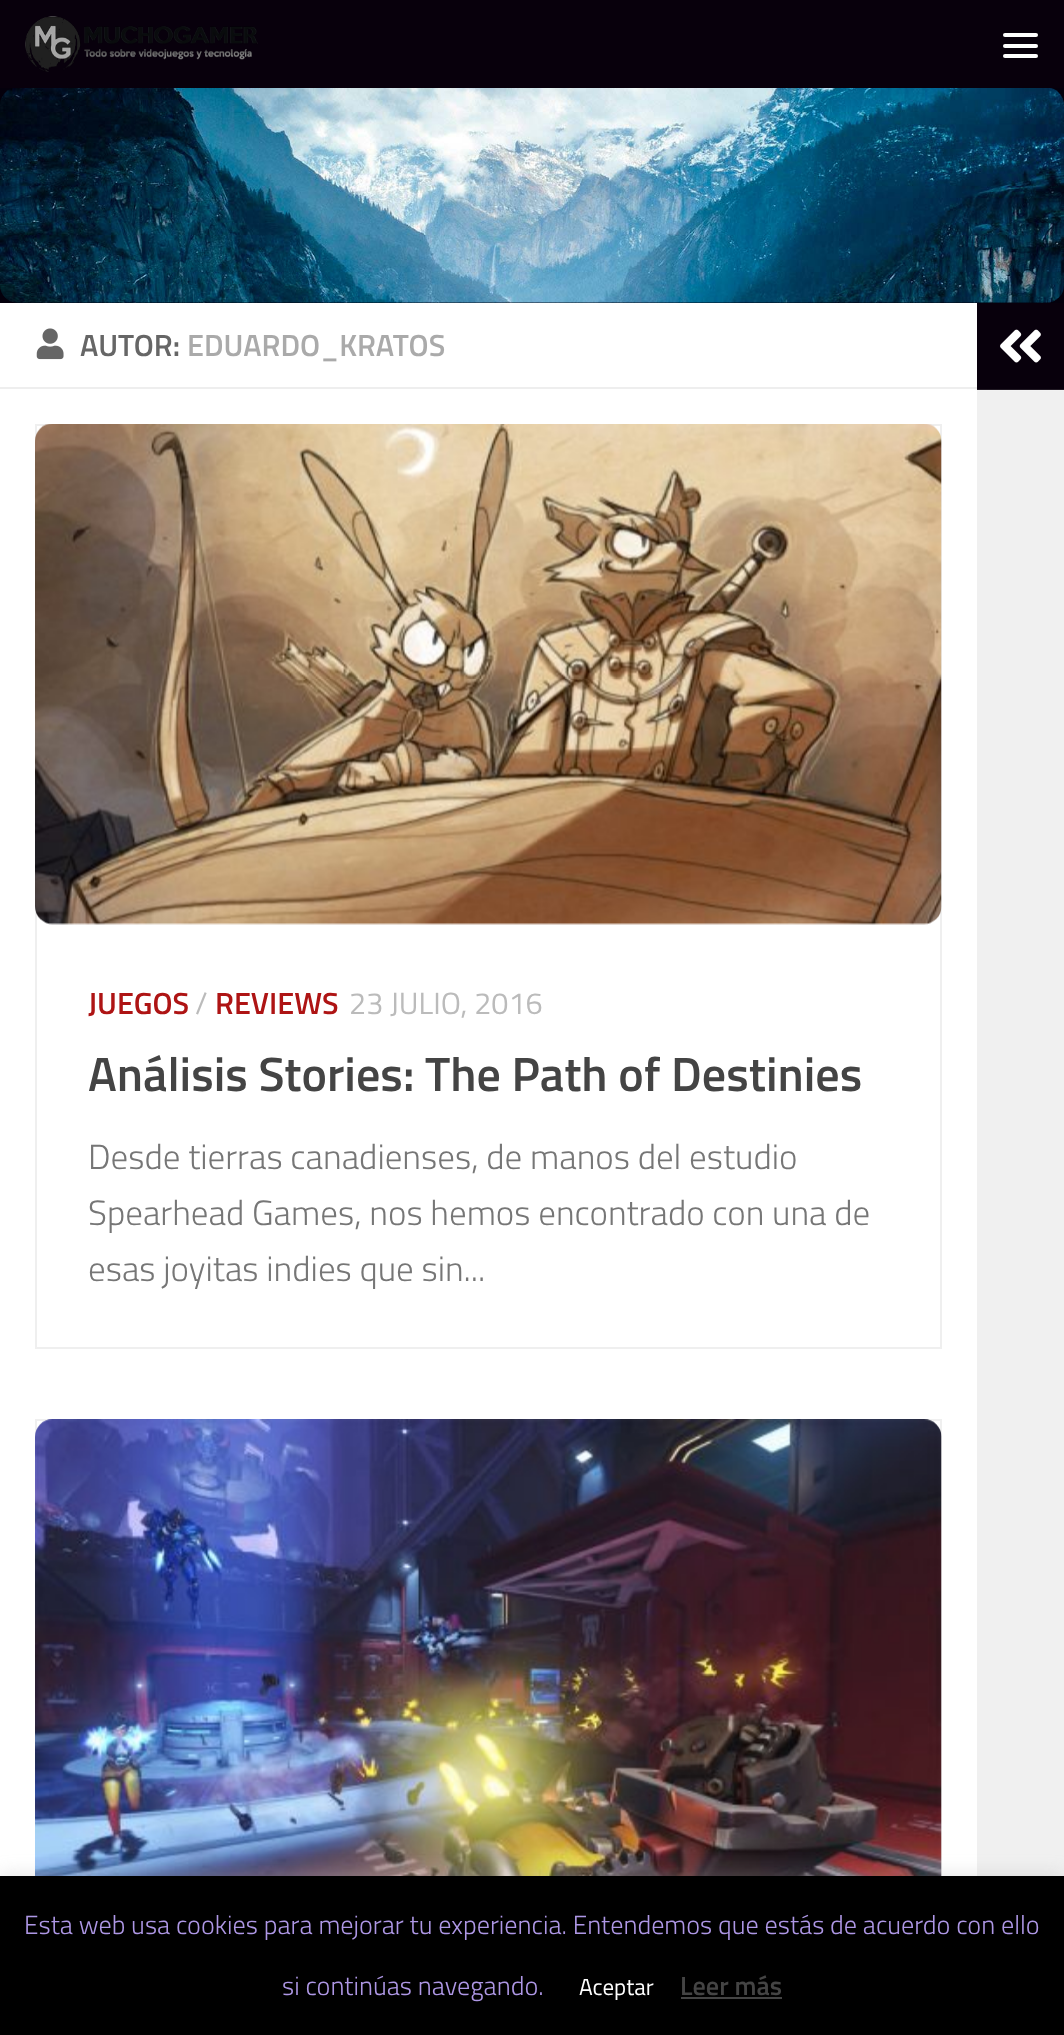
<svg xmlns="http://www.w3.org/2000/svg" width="1064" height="2035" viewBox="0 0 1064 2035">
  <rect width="100%" height="100%" fill="rgb(255,255,255)"/>
  <rect x="0" y="88" width="1064" height="215" fill="rgb(4,0,12)"/>
  <rect x="0" y="0" width="1064" height="88" fill="rgb(8,0,12)"/>
  <image x="25" y="16" width="233" height="56" href="pic1.png"/>
  <rect x="1003" y="33" width="35" height="4" rx="2" fill="rgb(255,255,255)"/>
  <rect x="1003" y="44" width="35" height="4" rx="2" fill="rgb(255,255,255)"/>
  <rect x="1003" y="54" width="35" height="4" rx="2" fill="rgb(255,255,255)"/>
  <image x="0" y="88" width="1064" height="215" href="pic2.png"/>
  <rect x="0" y="387" width="977" height="2" fill="rgb(238,238,238)"/>
  <image x="36" y="328" width="28" height="32" href="pic3.png"/>
  <text x="80" y="356" font-family="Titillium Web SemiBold" font-size="30.6" font-weight="600" fill="rgb(102,102,102)">AUTOR:</text>
  <text x="187" y="356" font-family="Titillium Web SemiBold" font-size="30.6" font-weight="600" fill="rgb(170,170,170)">EDUARDO_KRATOS</text>
  <rect x="36" y="425" width="905" height="923" fill="none" stroke="rgb(239,239,239)" stroke-width="2"/>
  <image x="35" y="424" width="907" height="501" href="pic4.png"/>
  <text x="88" y="1014" font-family="Titillium Web SemiBold" font-size="30.6" font-weight="600" fill="rgb(174,20,20)">JUEGOS</text>
  <text x="195" y="1014" font-family="Titillium Web" font-size="30.6" fill="rgb(187,187,187)">/</text>
  <text x="215" y="1014" font-family="Titillium Web SemiBold" font-size="30.6" font-weight="600" fill="rgb(174,20,20)">REVIEWS</text>
  <text x="349" y="1014" font-family="Titillium Web" font-size="30.6" fill="rgb(187,187,187)">23 JULIO, 2016</text>
  <text x="88" y="1091" font-family="Titillium Web SemiBold" font-size="48.1" font-weight="600" fill="rgb(68,68,68)">Análisis Stories: The Path of Destinies</text>
  <g font-family="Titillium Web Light" font-size="35" font-weight="300" fill="rgb(118,118,118)">
    <text>
      <tspan x="88" y="1169">Desde tierras canadienses, de manos del estudio</tspan>
      <tspan x="88" y="1225">Spearhead Games, nos hemos encontrado con una de</tspan>
      <tspan x="88" y="1281">esas joyitas indies que sin...</tspan>
    </text>
  </g>
  <rect x="36" y="1420" width="905" height="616" fill="none" stroke="rgb(239,239,239)" stroke-width="2"/>
  <image x="35" y="1419" width="907" height="457" href="pic5.png"/>
  <rect x="977" y="303" width="87" height="86" fill="rgb(8,0,12)"/>
  <rect x="977" y="389" width="87" height="1" fill="rgb(33,26,36)"/>
  <image x="1000" y="329" width="41" height="34" href="pic6.png"/>
  <rect x="977" y="391" width="87" height="1485" fill="rgb(240,240,240)"/>
  <rect x="977" y="390" width="87" height="1" fill="rgb(242,242,242)"/>
  <rect x="0" y="1874" width="1064" height="160" fill="rgba(172,171,171,0.3)" filter="blur(9px)"/>
  <rect x="0" y="1876" width="1064" height="159" fill="rgb(0,0,0)"/>
  <g font-family="Titillium Web Light" font-size="26.25" font-weight="300" fill="rgb(174,151,229)">
    <text x="24" y="1934">Esta web usa cookies para mejorar tu experiencia. Entendemos que estás de acuerdo con ello</text>
    <text x="282" y="1995">si continúas navegando.</text>
  </g>
  <text x="579" y="1995" font-family="Titillium Web" font-size="23" fill="rgb(255,255,255)">Aceptar</text>
  <text x="680" y="1995" font-family="Titillium Web SemiBold" font-size="26.25" font-weight="600" fill="rgb(68,68,68)">Leer más</text>
  <rect x="681" y="1997" width="101" height="2" fill="rgb(68,68,68)"/>
</svg>
